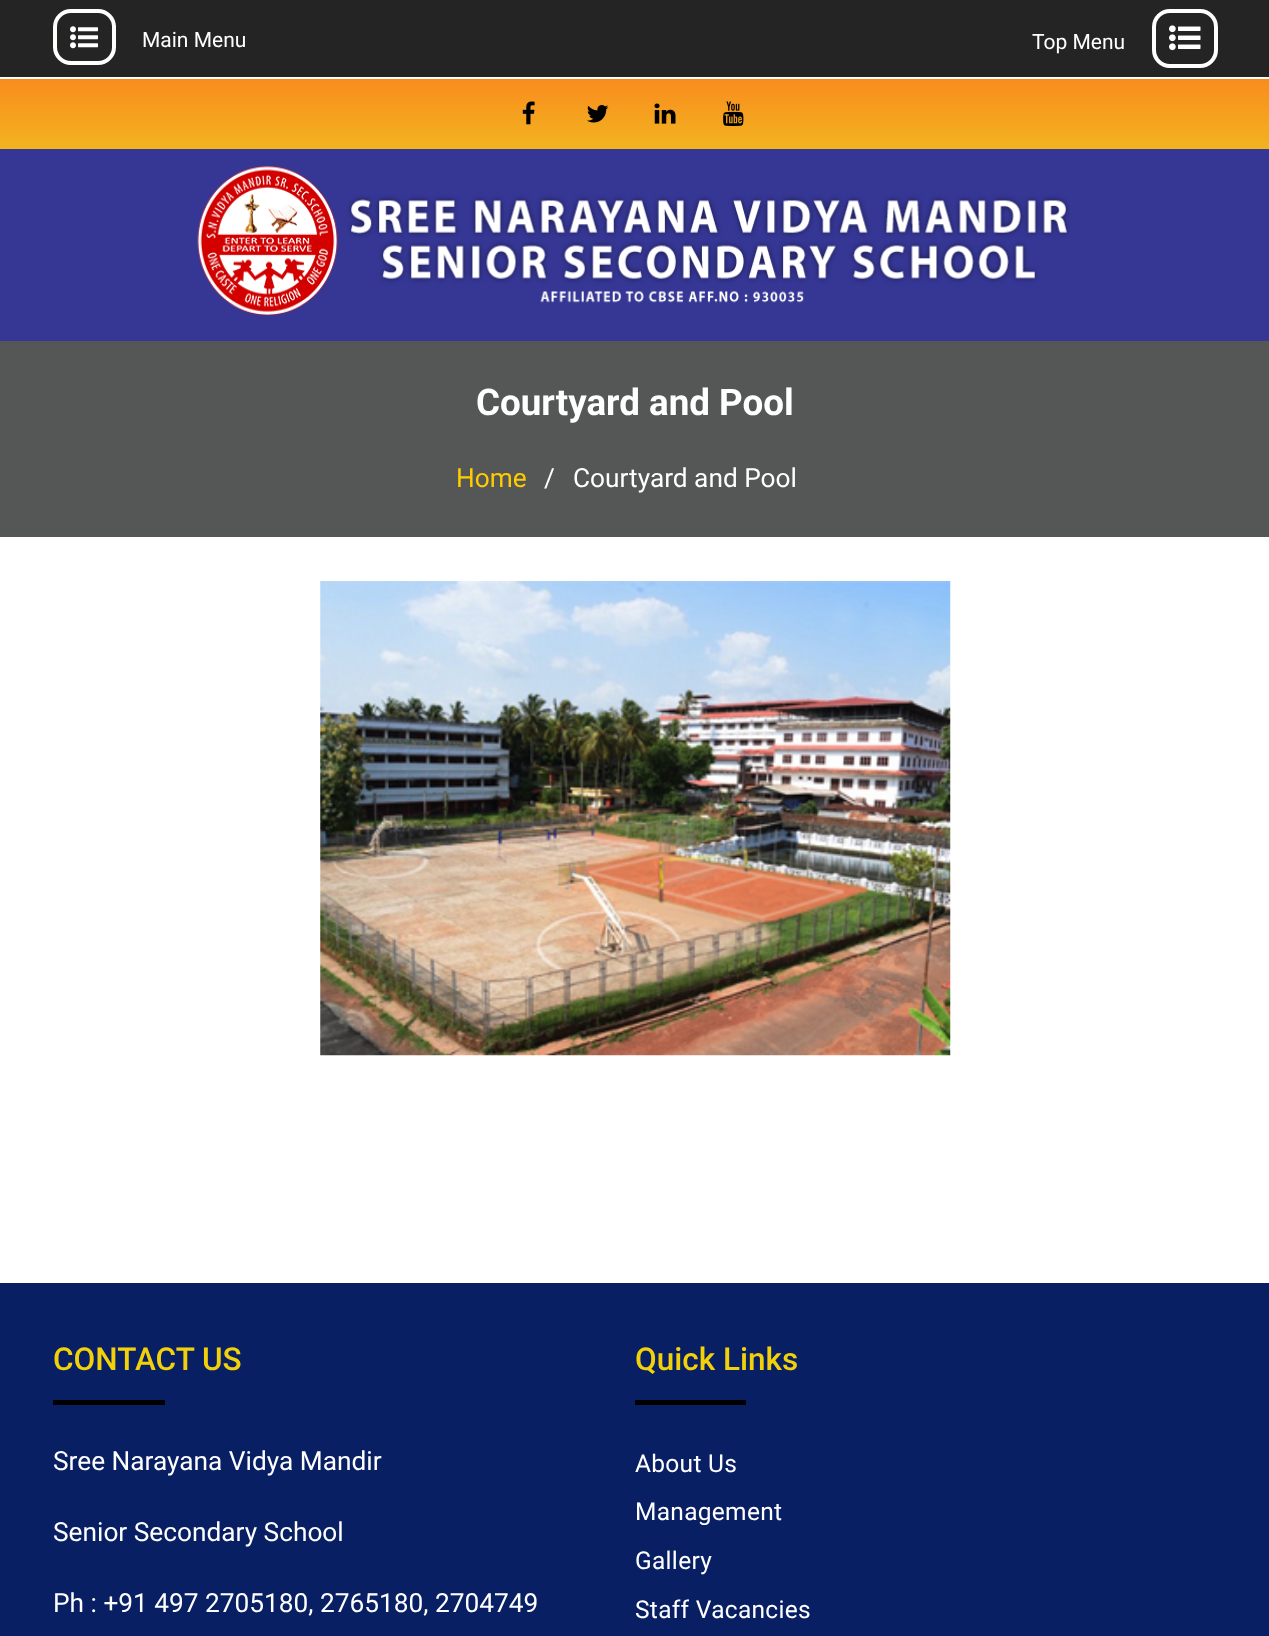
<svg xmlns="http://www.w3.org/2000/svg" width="1269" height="1636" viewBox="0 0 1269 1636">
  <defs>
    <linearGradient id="g1" gradientUnits="userSpaceOnUse" x1="635" y1="79" x2="635" y2="149"><stop offset="0" stop-color="rgb(249,140,30)"/><stop offset="1" stop-color="rgb(242,180,31)"/></linearGradient>
  </defs>
  <rect width="100%" height="100%" fill="rgb(255,255,255)"/>
  <rect x="0" y="0" width="1269" height="77" fill="rgb(36,36,36)"/>
  <rect x="55" y="11" width="59" height="52" rx="16" fill="none" stroke="rgb(255,255,254)" stroke-width="4"/>
  <image x="70" y="26" width="28" height="23" href="pic1.png"/>
  <g font-family="Roboto" font-size="21" fill="rgb(255,255,255)">
    <text x="142" y="47">Main Menu</text>
    <text x="1032" y="49">Top Menu</text>
  </g>
  <rect x="1154" y="11" width="62" height="55" rx="16" fill="none" stroke="rgb(255,255,255)" stroke-width="4"/>
  <image x="1169" y="25" width="32" height="26" href="pic2.png"/>
  <rect x="0" y="79" width="1269" height="70" fill="url(#g1)"/>
  <image x="522" y="101" width="13" height="24" href="pic3.png"/>
  <image x="587" y="105" width="22" height="18" href="pic4.png"/>
  <image x="654" y="103" width="22" height="21" href="pic5.png"/>
  <image x="723" y="101" width="21" height="25" href="pic6.png"/>
  <rect x="0" y="149" width="1269" height="192" fill="rgb(54,55,149)"/>
  <image x="197" y="166" width="873" height="149" href="pic7.png"/>
  <rect x="0" y="341" width="1269" height="196" fill="rgb(85,87,87)"/>
  <text x="476" y="415" font-family="Roboto" font-size="36.75" font-weight="bold" fill="rgb(255,255,255)">Courtyard and Pool</text>
  <text x="456" y="487" font-family="Roboto" font-size="26.25" fill="rgb(255,204,0)">Home</text>
  <g font-family="Roboto" font-size="26.25" fill="rgb(255,255,255)">
    <text x="544" y="487">/</text>
    <text x="573" y="487">Courtyard and Pool</text>
  </g>
  <image x="320" y="581" width="631" height="475" href="pic8.png"/>
  <rect x="0" y="1283" width="1269" height="353" fill="rgb(8,31,99)"/>
  <text x="53" y="1370" font-family="Roboto" font-size="31.5" font-weight="500" fill="rgb(242,209,11)">CONTACT US</text>
  <rect x="53" y="1400" width="112" height="5" fill="rgb(0,0,0)"/>
  <g font-family="Roboto" font-size="26.25" fill="rgb(255,255,255)">
    <text x="53" y="1470">Sree Narayana Vidya Mandir</text>
    <text x="53" y="1541">Senior Secondary School</text>
    <text x="53" y="1612">Ph : +91 497 2705180, 2765180, 2704749</text>
  </g>
  <text x="635" y="1370" font-family="Roboto" font-size="31.5" font-weight="500" fill="rgb(242,209,11)">Quick Links</text>
  <rect x="635" y="1400" width="111" height="5" fill="rgb(0,0,0)"/>
  <g font-family="Roboto" font-size="24.5" letter-spacing="0.3" fill="rgb(255,255,255)">
    <text>
      <tspan x="635" y="1472">About Us</tspan>
      <tspan x="635" y="1520">Management</tspan>
    </text>
    <text x="635" y="1569">Gallery</text>
    <text x="635" y="1618">Staff Vacancies</text>
  </g>
</svg>
